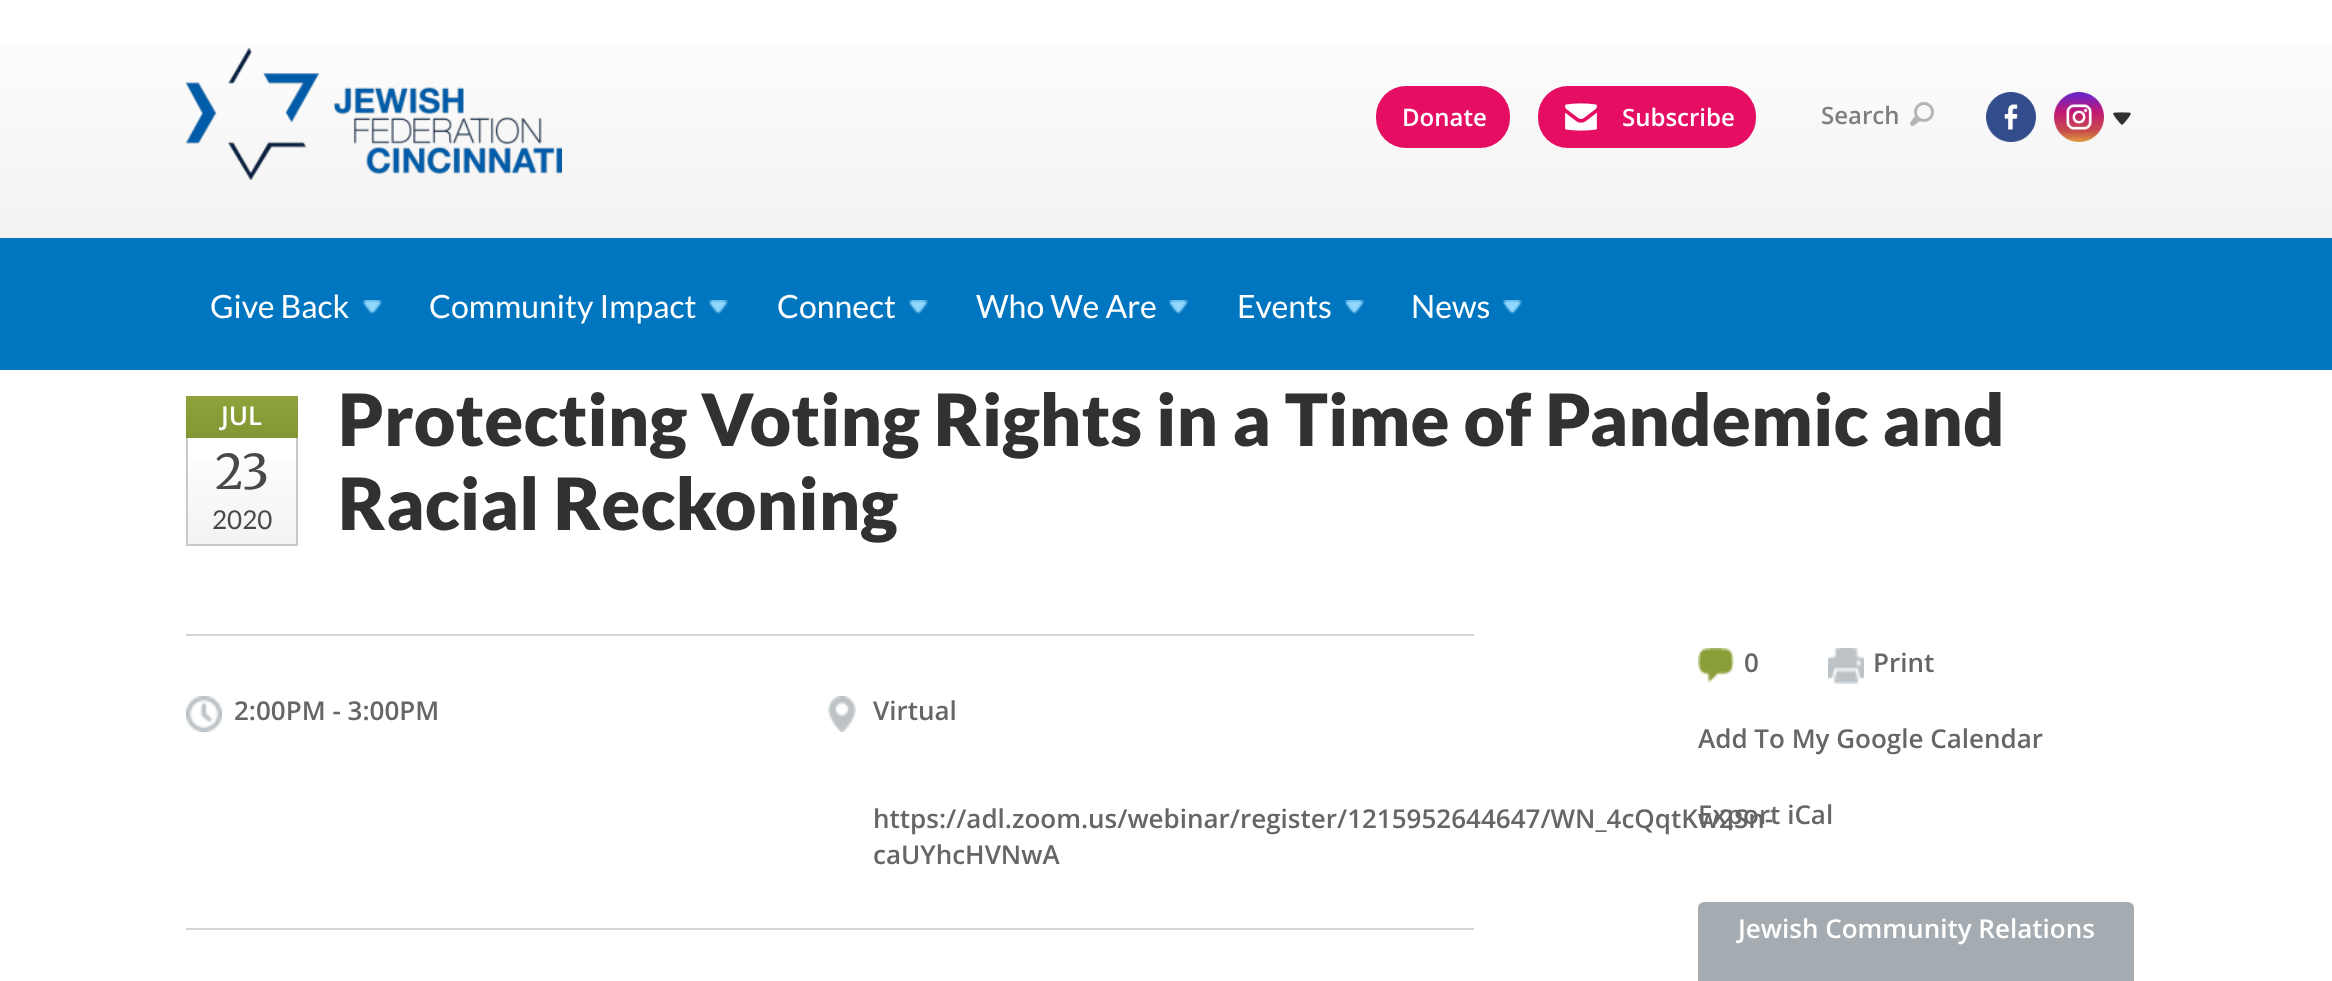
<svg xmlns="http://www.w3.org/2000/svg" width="2332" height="981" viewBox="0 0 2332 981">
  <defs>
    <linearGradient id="g1" gradientUnits="userSpaceOnUse" x1="1166" y1="0" x2="1166" y2="238"><stop offset="0" stop-color="rgb(255,255,255)"/><stop offset="1" stop-color="rgb(242,242,242)"/></linearGradient>
    <linearGradient id="g2" gradientUnits="userSpaceOnUse" x1="242" y1="396" x2="242" y2="438"><stop offset="0" stop-color="rgb(142,163,58)"/><stop offset="1" stop-color="rgb(130,150,51)"/></linearGradient>
    <linearGradient id="g3" gradientUnits="userSpaceOnUse" x1="242" y1="438" x2="242" y2="544"><stop offset="0" stop-color="rgb(255,255,255)"/><stop offset="1" stop-color="rgb(243,243,243)"/></linearGradient>
  </defs>
  <rect width="100%" height="100%" fill="rgb(255,255,255)"/>
  <rect x="0" y="46" width="2332" height="192" fill="url(#g1)"/>
  <image x="186" y="48" width="376" height="132" href="pic1.png"/>
  <rect x="1376" y="86" width="134" height="62" rx="30" fill="rgb(229,14,99)"/>
  <text x="1402" y="126" font-family="Open Sans" font-size="24" font-weight="600" fill="rgb(255,255,255)">Donate</text>
  <rect x="1538" y="86" width="218" height="62" rx="30" fill="rgb(229,14,99)"/>
  <image x="1565" y="103" width="32" height="28" href="pic2.png"/>
  <text x="1622" y="126" font-family="Open Sans" font-size="24" font-weight="600" fill="rgb(255,255,255)">Subscribe</text>
  <text x="1821" y="124" font-family="Open Sans" font-size="24" font-weight="600" fill="rgb(127,127,127)">Search</text>
  <image x="1910" y="102" width="24" height="24" href="pic3.png"/>
  <image x="1986" y="92" width="50" height="50" href="pic4.png"/>
  <image x="2054" y="92" width="50" height="50" href="pic5.png"/>
  <image x="2113" y="112" width="18" height="13" href="pic6.png"/>
  <rect x="0" y="238" width="2332" height="132" fill="rgb(0,118,192)"/>
  <text x="210" y="318" font-family="Lato" font-size="32" fill="rgb(255,255,255)">Give Back</text>
  <image x="362" y="300" width="20" height="14" href="pic7.png"/>
  <text x="429" y="318" font-family="Lato" font-size="32" fill="rgb(255,255,255)">Community Impact</text>
  <image x="708" y="300" width="20" height="14" href="pic7.png"/>
  <text x="777" y="318" font-family="Lato" font-size="32" fill="rgb(255,255,255)">Connect</text>
  <image x="908" y="300" width="20" height="14" href="pic7.png"/>
  <text x="976" y="318" font-family="Lato" font-size="32" fill="rgb(255,255,255)">Who We Are</text>
  <image x="1168" y="300" width="20" height="14" href="pic7.png"/>
  <text x="1237" y="318" font-family="Lato" font-size="32" fill="rgb(255,255,255)">Events</text>
  <image x="1344" y="300" width="20" height="14" href="pic7.png"/>
  <text x="1411" y="318" font-family="Lato" font-size="32" fill="rgb(255,255,255)">News</text>
  <image x="1502" y="300" width="20" height="14" href="pic7.png"/>
  <rect x="186" y="396" width="112" height="42" fill="url(#g2)"/>
  <text x="221" y="425" font-family="Open Sans" font-size="26" font-weight="600" fill="rgb(255,255,255)">JUL</text>
  <rect x="188" y="460" width="108" height="84" fill="url(#g3)"/>
  <rect x="296" y="438" width="2" height="108" fill="rgb(201,201,201)"/>
  <rect x="186" y="544" width="112" height="2" fill="rgb(201,201,201)"/>
  <rect x="186" y="438" width="2" height="108" fill="rgb(201,201,201)"/>
  <text x="215" y="489" font-family="Merriweather" font-size="48" fill="rgb(72,72,72)">23</text>
  <text x="212" y="529" font-family="Lato" font-size="26" fill="rgb(72,72,72)">2020</text>
  <g font-family="Lato" font-size="72" font-weight="900" fill="rgb(49,49,49)">
    <text>
      <tspan x="338" y="446">Protecting Voting Rights in a Time of Pandemic and</tspan>
      <tspan x="338" y="530">Racial Reckoning</tspan>
    </text>
  </g>
  <rect x="186" y="634" width="1288" height="2" fill="rgb(213,213,213)"/>
  <image x="186" y="696" width="36" height="36" href="pic8.png"/>
  <text x="234" y="720" font-family="Open Sans" font-size="26" font-weight="600" fill="rgb(102,102,102)">2:00PM - 3:00PM</text>
  <image x="828" y="696" width="28" height="36" href="pic9.png"/>
  <g font-family="Open Sans" font-size="26" font-weight="600" fill="rgb(102,102,102)">
    <text x="873" y="720">Virtual</text>
    <text>
      <tspan x="873" y="828">https://adl.zoom.us/webinar/register/1215952644647/WN_4cQqtKw2Sn-</tspan>
      <tspan x="873" y="864">caUYhcHVNwA</tspan>
    </text>
  </g>
  <rect x="186" y="928" width="1288" height="2" fill="rgb(213,213,213)"/>
  <image x="1698" y="648" width="36" height="34" href="pic10.png"/>
  <text x="1744" y="672" font-family="Open Sans" font-size="26" font-weight="600" fill="rgb(102,102,102)">0</text>
  <image x="1828" y="648" width="36" height="36" href="pic11.png"/>
  <g font-family="Open Sans" font-size="26" font-weight="600" fill="rgb(102,102,102)">
    <text x="1873" y="672">Print</text>
    <text x="1698" y="748">Add To My Google Calendar</text>
    <text x="1698" y="824">Export iCal</text>
  </g>
  <rect x="1698" y="902" width="436" height="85" rx="6" fill="rgb(164,172,177)"/>
  <text x="1738" y="938" font-family="Open Sans" font-size="26" font-weight="600" fill="rgb(255,255,255)">Jewish Community Relations</text>
</svg>
